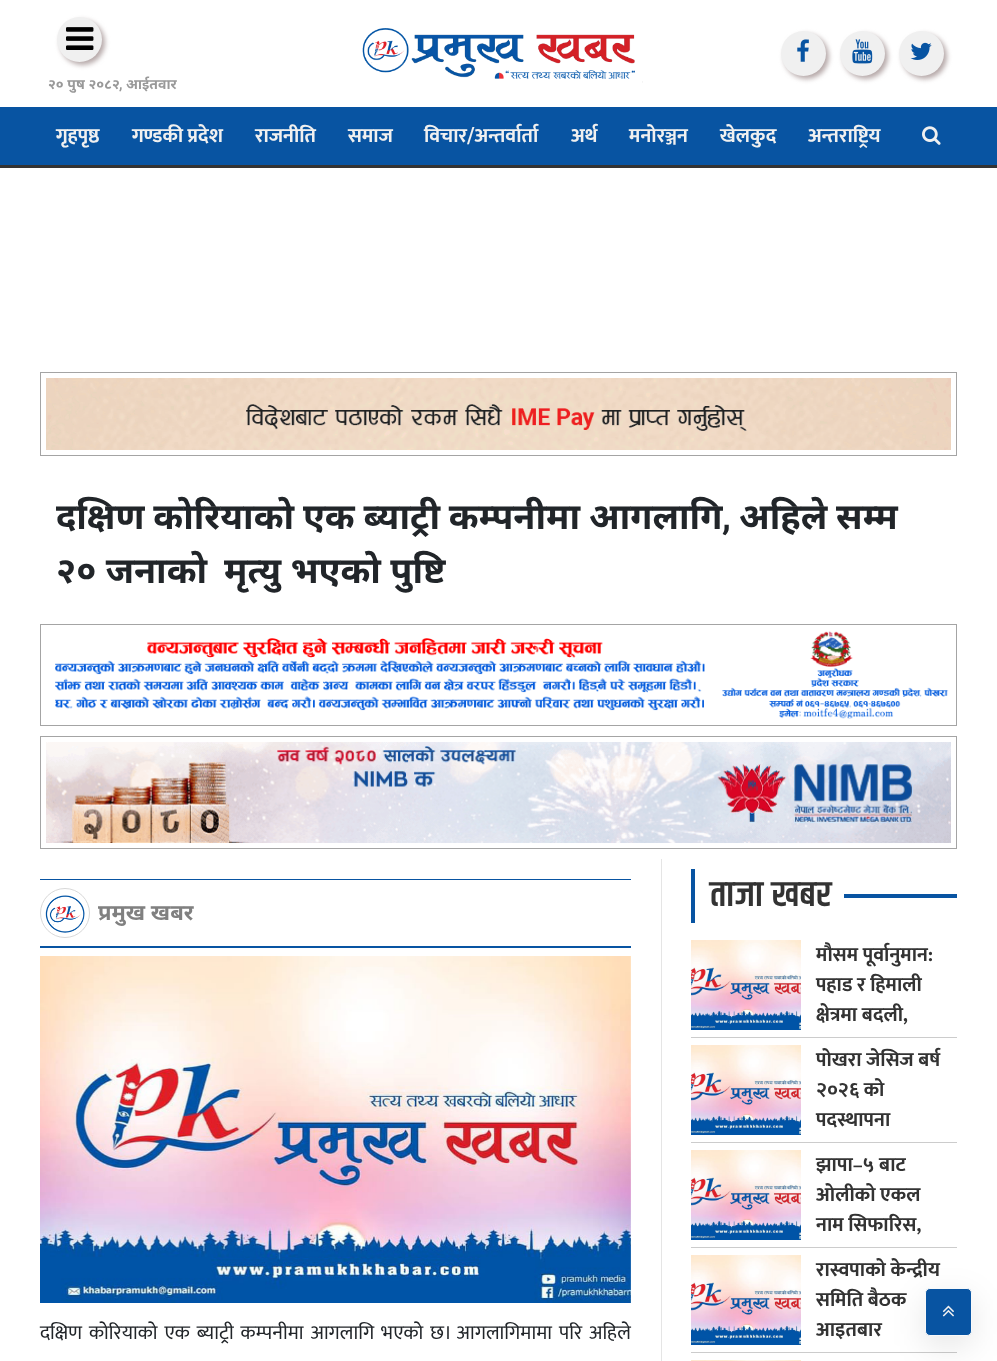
<svg xmlns="http://www.w3.org/2000/svg" width="997" height="1361" viewBox="0 0 997 1361">
  <rect width="100%" height="100%" fill="rgb(255,255,255)"/>
  <rect x="60" y="20" width="45" height="45" rx="22.5" fill="rgb(182,169,169)" filter="blur(2.5px)"/>
  <circle cx="79.5" cy="39.5" r="22.5" fill="rgb(240,240,240)"/>
  <image x="66" y="27" width="28" height="23" href="pic1.png"/>
  <text x="48" y="89" font-family="Noto Sans" font-size="14" font-weight="bold" fill="rgb(153,153,153)">२० पुष २०८२</text>
  <text x="119" y="89" font-family="Roboto" font-size="14" font-weight="bold" fill="rgb(153,153,153)">,</text>
  <text x="126" y="89" font-family="Noto Sans" font-size="14" font-weight="bold" fill="rgb(153,153,153)">आईतवार</text>
  <image x="362" y="28" width="281" height="55" href="pic2.png"/>
  <rect x="784" y="34" width="45" height="45" rx="22.5" fill="rgb(182,169,169)" filter="blur(2.5px)"/>
  <circle cx="803.5" cy="53.5" r="22.5" fill="rgb(240,240,240)"/>
  <image x="797" y="39" width="12" height="23" href="pic3.png"/>
  <rect x="843" y="34" width="45" height="45" rx="22.5" fill="rgb(182,169,169)" filter="blur(2.5px)"/>
  <circle cx="862.5" cy="53.5" r="22.5" fill="rgb(240,240,240)"/>
  <image x="852" y="39" width="21" height="25" href="pic4.png"/>
  <rect x="902" y="34" width="45" height="45" rx="22.5" fill="rgb(182,169,169)" filter="blur(2.5px)"/>
  <circle cx="921.5" cy="53.5" r="22.5" fill="rgb(240,240,240)"/>
  <image x="910" y="42" width="22" height="18" href="pic5.png"/>
  <rect x="0" y="107" width="997" height="58" fill="rgb(8,84,162)"/>
  <rect x="0" y="165" width="997" height="3" fill="rgb(51,51,51)"/>
  <g font-family="Mukta" font-size="20" font-weight="bold" fill="rgb(240,240,240)">
    <text x="56" y="142">गृहपृष्ठ</text>
    <text x="132" y="142">गण्डकी प्रदेश</text>
    <text x="255" y="142">राजनीति</text>
    <text x="348" y="142">समाज</text>
    <text x="424" y="142">विचार/अन्तर्वार्ता</text>
    <text x="571" y="142">अर्थ</text>
    <text x="629" y="142">मनोरञ्जन</text>
    <text x="720" y="142">खेलकुद</text>
    <text x="808" y="142">अन्तराष्ट्रिय</text>
  </g>
  <image x="922" y="126" width="19" height="19" href="pic6.png"/>
  <rect x="40.5" y="372.5" width="916" height="83" fill="none" stroke="rgb(164,164,164)"/>
  <image x="46" y="378" width="905" height="72" href="pic7.png"/>
  <text x="56" y="529" word-spacing="-0.5" font-family="Noto Sans" font-size="36" font-weight="bold" fill="rgb(33,37,41)">दक्षिण कोरियाको एक ब्याट्री कम्पनीमा आगलागि</text>
  <text x="722" y="529" font-family="Roboto" font-size="36" font-weight="bold" fill="rgb(33,37,41)">,</text>
  <g font-family="Noto Sans" font-size="36" font-weight="bold" fill="rgb(33,37,41)">
    <text x="739" y="529" word-spacing="-0.5">अहिले सम्म</text>
    <text x="56" y="583">२० जनाको</text>
    <text x="224" y="583">मृत्यु भएको पुष्टि</text>
  </g>
  <rect x="40.5" y="624.5" width="916" height="101" fill="none" stroke="rgb(164,164,164)"/>
  <image x="55" y="631" width="894" height="88" href="pic8.png"/>
  <rect x="40.5" y="736.5" width="916" height="112" fill="none" stroke="rgb(164,164,164)"/>
  <image x="46" y="742" width="905" height="101" href="pic9.png"/>
  <rect x="40" y="879" width="591" height="1" fill="rgb(8,84,162)"/>
  <rect x="40" y="946" width="591" height="2" fill="rgb(8,84,162)"/>
  <circle cx="65" cy="913" r="24.5" fill="none" stroke="rgb(216,216,216)"/>
  <image x="45" y="895" width="40" height="38" href="pic10.png"/>
  <text x="98" y="920" font-family="Noto Sans" font-size="22" font-weight="bold" fill="rgb(128,128,128)">प्रमुख खबर</text>
  <image x="40" y="956" width="591" height="347" href="pic11.png"/>
  <text x="40" y="1339" word-spacing="2.5" font-family="Mukta" font-size="20" fill="rgb(33,37,41)">दक्षिण कोरियाको एक ब्याट्री कम्पनीमा आगलागि भएको छ। आगलागिमामा परि अहिले</text>
  <rect x="661" y="859" width="1" height="502" fill="rgb(229,229,229)"/>
  <rect x="691" y="869" width="4" height="54" fill="rgb(8,84,162)"/>
  <text x="710" y="906" font-family="Khand" font-size="36" font-weight="600" fill="rgb(51,51,51)">ताजा खबर</text>
  <rect x="844" y="894" width="113" height="4" fill="rgb(8,84,162)"/>
  <rect x="691" y="1037" width="266" height="1" fill="rgb(204,204,204)"/>
  <image x="691" y="940" width="110" height="90" href="pic12.png"/>
  <g font-family="Mukta" font-size="20" font-weight="bold" fill="rgb(51,51,51)">
    <text>
      <tspan x="816" y="961">मौसम पूर्वानुमान:</tspan>
      <tspan x="816" y="991">पहाड र हिमाली</tspan>
      <tspan x="816" y="1021">क्षेत्रमा बदली,</tspan>
    </text>
  </g>
  <rect x="691" y="1142" width="266" height="1" fill="rgb(204,204,204)"/>
  <image x="691" y="1045" width="110" height="90" href="pic12.png"/>
  <g font-family="Mukta" font-size="20" font-weight="bold" fill="rgb(51,51,51)">
    <text>
      <tspan x="816" y="1066">पोखरा जेसिज बर्ष</tspan>
      <tspan x="816" y="1096">२०२६ को</tspan>
      <tspan x="816" y="1126">पदस्थापना</tspan>
    </text>
  </g>
  <rect x="691" y="1247" width="266" height="1" fill="rgb(204,204,204)"/>
  <image x="691" y="1150" width="110" height="90" href="pic12.png"/>
  <g font-family="Mukta" font-size="20" font-weight="bold" fill="rgb(51,51,51)">
    <text>
      <tspan x="816" y="1171">झापा–५ बाट</tspan>
      <tspan x="816" y="1201">ओलीको एकल</tspan>
      <tspan x="816" y="1231">नाम सिफारिस,</tspan>
    </text>
  </g>
  <rect x="691" y="1352" width="266" height="1" fill="rgb(204,204,204)"/>
  <image x="691" y="1255" width="110" height="90" href="pic12.png"/>
  <g font-family="Mukta" font-size="20" font-weight="bold" fill="rgb(51,51,51)">
    <text>
      <tspan x="816" y="1276">रास्वपाको केन्द्रीय</tspan>
      <tspan x="816" y="1306">समिति बैठक</tspan>
      <tspan x="816" y="1336">आइतबार</tspan>
    </text>
  </g>
  <image x="691" y="1360" width="110" height="1" href="pic13.png"/>
  <rect x="925" y="1298" width="47" height="48" rx="5" fill="rgba(0,0,0,0.1)" filter="blur(16.5px)"/>
  <rect x="925.5" y="1288.5" width="46" height="47" rx="4.5" fill="rgb(8,84,162)" stroke="rgb(248,249,250)"/>
  <image x="942" y="1305" width="12" height="12" href="pic14.png"/>
</svg>
